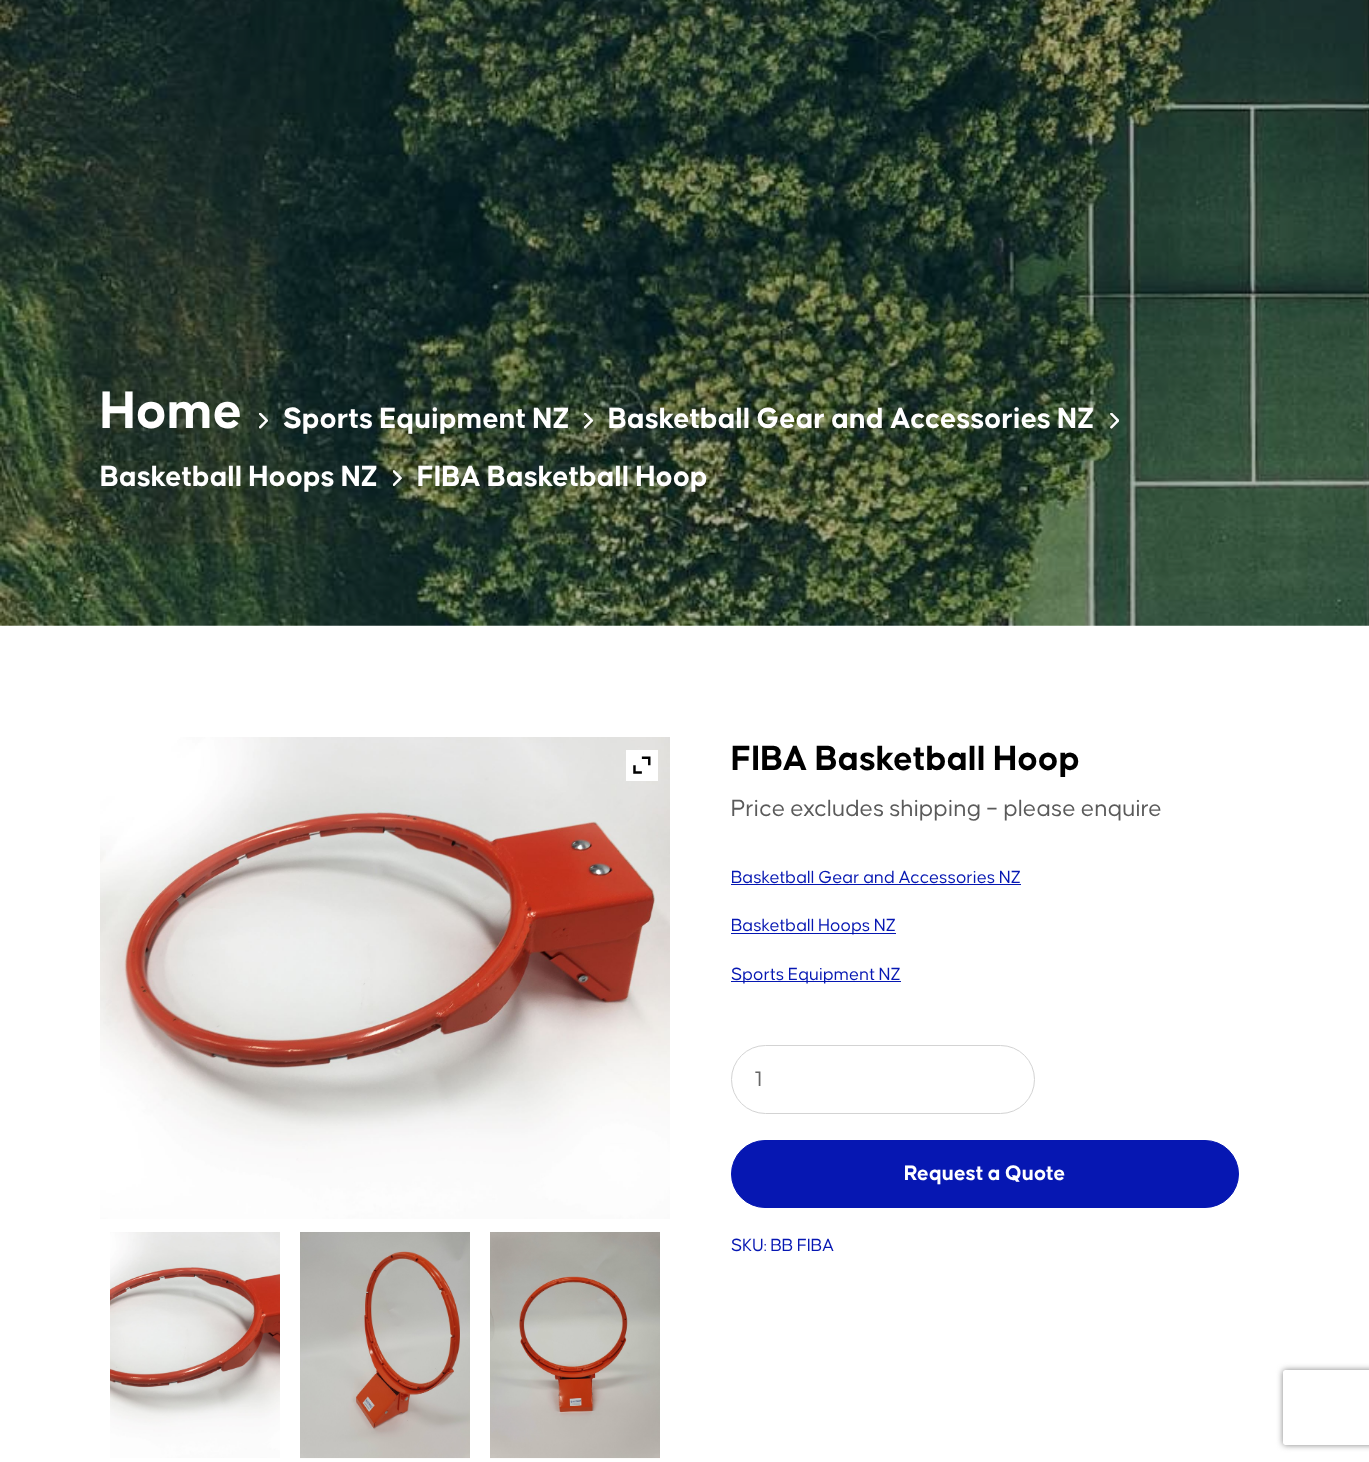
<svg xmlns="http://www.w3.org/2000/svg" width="1369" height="1462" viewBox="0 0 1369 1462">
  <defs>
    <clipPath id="clip1"><path d="M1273 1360H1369V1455H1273ZM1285.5 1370H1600.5C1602 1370 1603 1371 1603 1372.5V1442.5C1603 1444 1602 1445 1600.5 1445H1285.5C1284 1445 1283 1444 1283 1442.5V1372.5C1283 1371 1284 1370 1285.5 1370Z" clip-rule="evenodd"/></clipPath>
  </defs>
  <rect width="100%" height="100%" fill="rgb(255,255,255)"/>
  <image x="0" y="0" width="1369" height="626" href="pic1.png"/>
  <text x="100" y="428" font-family="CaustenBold" font-size="56" font-weight="bold" fill="rgb(255,255,255)">Home</text>
  <image x="259" y="413" width="9" height="16" href="pic2.png"/>
  <text x="283" y="428" font-family="CaustenBold" font-size="31.25" font-weight="bold" fill="rgb(255,255,255)">Sports Equipment NZ</text>
  <image x="584" y="413" width="10" height="16" href="pic3.png"/>
  <text x="608" y="428" font-family="CaustenBold" font-size="31.25" font-weight="bold" fill="rgb(255,255,255)">Basketball Gear and Accessories NZ</text>
  <image x="1110" y="413" width="9" height="16" href="pic4.png"/>
  <text x="100" y="486" font-family="CaustenBold" font-size="31.25" font-weight="bold" fill="rgb(255,255,255)">Basketball Hoops NZ</text>
  <image x="393" y="470" width="9" height="16" href="pic5.png"/>
  <text x="417" y="486" font-family="CaustenBold" font-size="31.25" font-weight="bold" fill="rgb(255,255,255)">FIBA Basketball Hoop</text>
  <image x="100" y="737" width="570" height="482" href="pic6.png"/>
  <rect x="626" y="750" width="32" height="31" fill="rgb(255,255,255)"/>
  <image x="633" y="756" width="18" height="18" href="pic7.png"/>
  <image x="110" y="1232" width="170" height="226" href="pic8.png"/>
  <image x="300" y="1232" width="170" height="227" href="pic9.png"/>
  <image x="490" y="1232" width="170" height="227" href="pic10.png"/>
  <text x="731" y="770" font-family="CaustenBold" font-size="37.5" font-weight="bold" fill="rgb(0,0,0)">FIBA Basketball Hoop</text>
  <text x="731" y="816" font-family="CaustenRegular" font-size="25" fill="rgb(90,90,90)">Price excludes shipping – please enquire</text>
  <text x="731" y="883" font-family="CaustenRegular" font-size="18.75" fill="rgb(6,23,178)">Basketball Gear and Accessories NZ</text>
  <rect x="731" y="884" width="290" height="1" fill="rgb(6,23,178)"/>
  <rect x="731" y="933" width="165" height="1" fill="rgb(6,23,178)"/>
  <text x="731" y="931" font-family="CaustenRegular" font-size="18.75" fill="rgb(6,23,178)">Basketball Hoops NZ</text>
  <rect x="731" y="981" width="170" height="1" fill="rgb(6,23,178)"/>
  <text x="731" y="980" font-family="CaustenRegular" font-size="18.75" fill="rgb(6,23,178)">Sports Equipment NZ</text>
  <rect x="731.5" y="1045.5" width="303" height="68" rx="34" fill="none" stroke="rgb(211,211,211)"/>
  <text x="755" y="1086" font-family="CaustenRegular" font-size="22.5" fill="rgb(102,102,102)">1</text>
  <rect x="731.5" y="1140.5" width="507" height="67" rx="33.5" fill="rgb(6,23,178)" stroke="rgb(6,23,178)"/>
  <text x="904" y="1180" font-family="CaustenBold" font-size="22.5" font-weight="bold" fill="rgb(255,255,255)">Request a Quote</text>
  <text x="731" y="1251" font-family="CaustenRegular" font-size="18.75" fill="rgb(6,23,178)">SKU: BB FIBA</text>
  <g clip-path="url(#clip1)">
    <rect x="1283" y="1370" width="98" height="75" rx="2.5" fill="rgb(128,128,128)" filter="blur(3px)"/>
  </g>
</svg>
